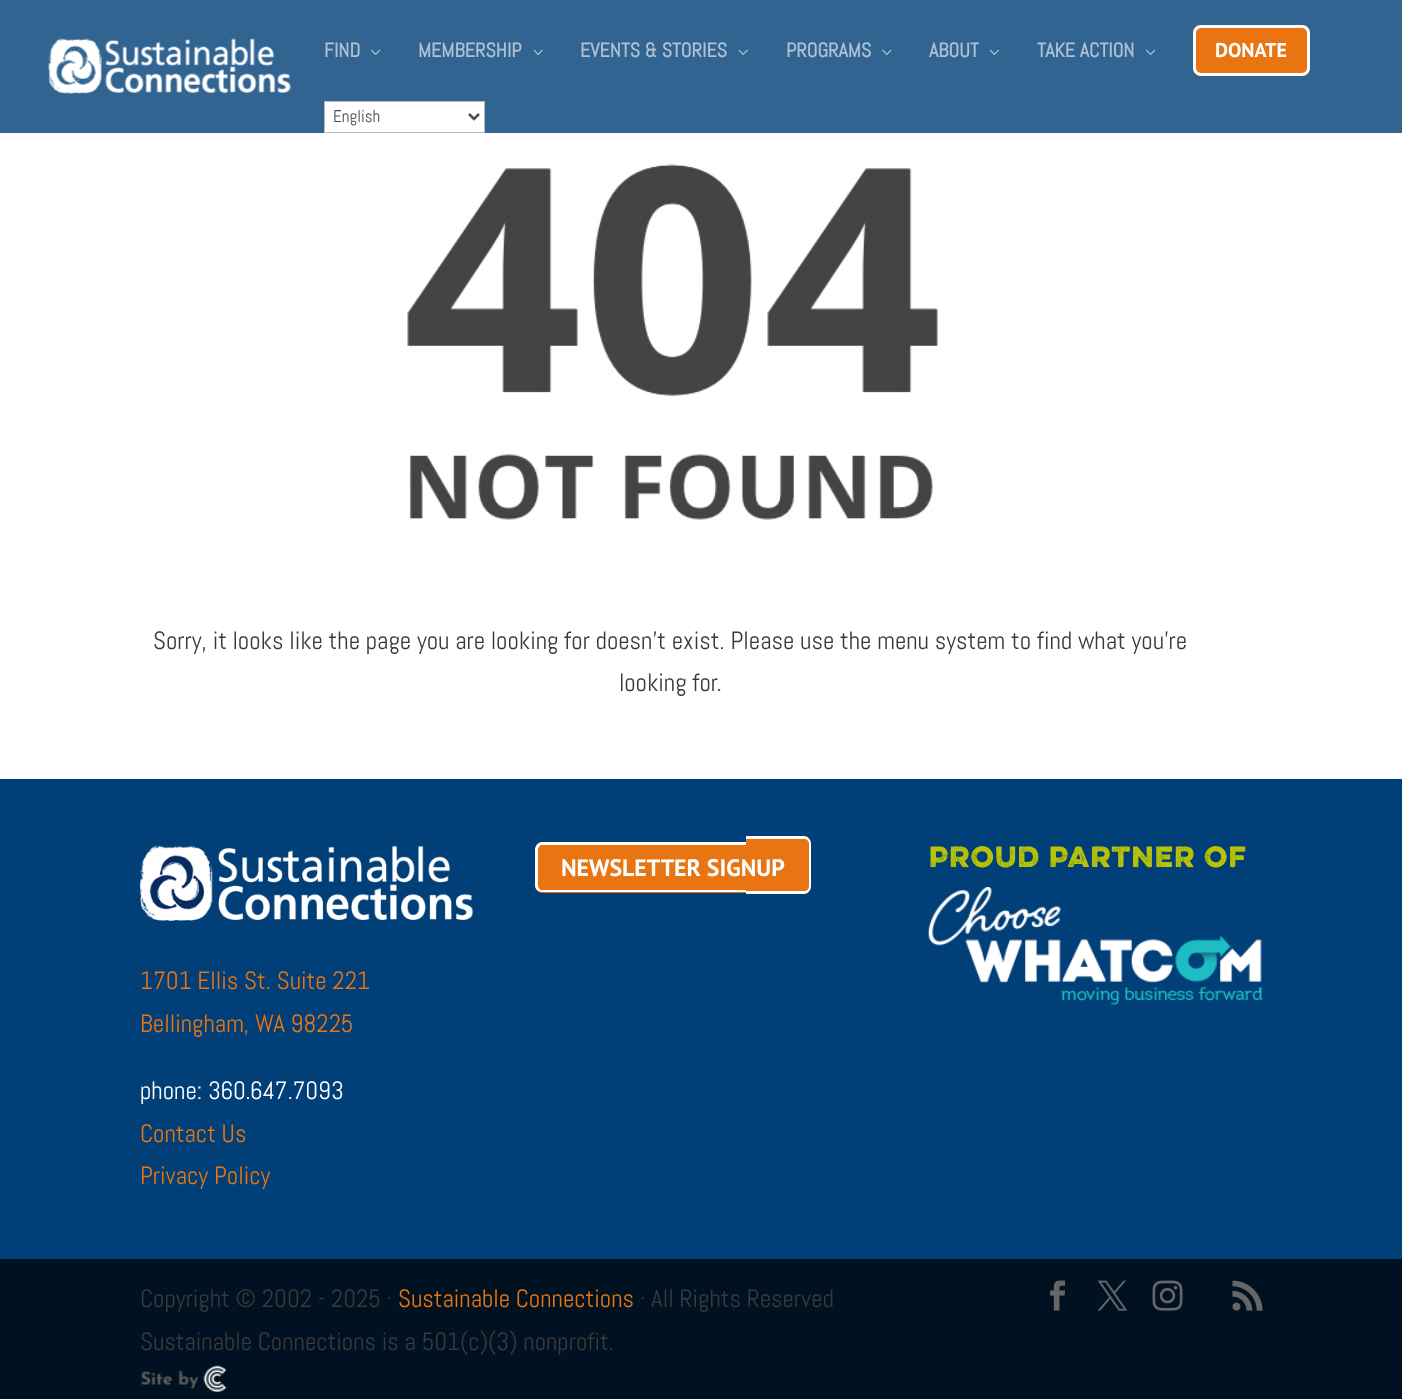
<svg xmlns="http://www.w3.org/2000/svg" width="1402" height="1399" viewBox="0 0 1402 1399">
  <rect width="100%" height="100%" fill="rgb(255,255,255)"/>
  <rect x="0" y="0" width="1402" height="133" fill="rgb(49,100,145)"/>
  <image x="48" y="38" width="243" height="56" href="pic1.png"/>
  <text x="324" y="57" font-family="Abel" font-size="20" font-weight="bold" fill="rgb(173,193,211)">FIND</text>
  <image x="371" y="49" width="10" height="6" href="pic2.png"/>
  <text x="418" y="57" font-family="Abel" font-size="20" font-weight="bold" fill="rgb(173,193,211)">MEMBERSHIP</text>
  <image x="533" y="49" width="10" height="6" href="pic3.png"/>
  <text x="580" y="57" font-family="Abel" font-size="20" font-weight="bold" fill="rgb(173,193,211)">EVENTS &amp; STORIES</text>
  <image x="738" y="49" width="10" height="6" href="pic3.png"/>
  <text x="786" y="57" font-family="Abel" font-size="20" font-weight="bold" fill="rgb(173,193,211)">PROGRAMS</text>
  <image x="882" y="49" width="10" height="6" href="pic4.png"/>
  <text x="929" y="57" font-family="Abel" font-size="20" font-weight="bold" fill="rgb(173,193,211)">ABOUT</text>
  <image x="989" y="49" width="10" height="6" href="pic5.png"/>
  <text x="1037" y="57" font-family="Abel" font-size="20" font-weight="bold" fill="rgb(173,193,211)">TAKE ACTION</text>
  <image x="1146" y="49" width="10" height="6" href="pic2.png"/>
  <rect x="1193" y="25" width="117" height="51" rx="8" fill="rgb(232,117,17)"/>
  <rect x="1194.5" y="26.5" width="114" height="48" rx="6.5" fill="none" stroke="rgba(255,255,255,0.99)" stroke-width="3"/>
  <text x="1215" y="57" font-family="PT Sans" font-size="20" font-weight="bold" fill="rgb(255,255,255)">DONATE</text>
  <rect x="324.5" y="101.5" width="160" height="31" fill="rgb(255,255,255)" stroke="rgb(187,187,187)"/>
  <path d="M469 114L474 119L479 114" fill="none" stroke="rgb(78,78,78)" stroke-width="2.5"/>
  <text x="333" y="122" font-family="Abel" font-size="17" fill="rgb(78,78,78)">English</text>
  <image x="407" y="164" width="531" height="356" href="pic6.png"/>
  <g font-family="Abel" font-size="25" fill="rgb(58,58,58)">
    <text x="153" y="649">Sorry, it looks like the page you are looking for doesn't exist. Please use the menu system to find what you're</text>
    <text x="619" y="691">looking for.</text>
  </g>
  <rect x="0" y="779" width="1402" height="480" fill="rgb(0,63,119)"/>
  <path d="M543 843H785V893H543C538.5 893 535 889.5 535 885V851C535 846.5 538.5 843 543 843Z" fill="rgb(232,117,17)"/>
  <path d="M542 842H785V892H542C538 892 535 889 535 885V850C535 846 538 842 542 842ZM542 845H785V890H542C540 890 538 888 538 885V850C538 847 540 845 542 845Z" fill="rgba(255,255,255,0.99)" fill-rule="evenodd"/>
  <path d="M746 836H803C807.5 836 811 839.5 811 844V886C811 890.5 807.5 894 803 894H746Z" fill="rgb(232,117,17)"/>
  <path d="M746 836H804C808 836 811 840 811 844V886C811 890 808 894 804 894H746ZM746 839H804C807 839 809 841 809 844V886C809 889 807 891 804 891H746Z" fill="rgba(255,255,255,0.99)" fill-rule="evenodd"/>
  <text x="561" y="876" font-family="PT Sans" font-size="23.75" font-weight="bold" fill="rgb(255,255,255)">NEWSLETTER SIGNUP</text>
  <text x="929" y="867" font-family="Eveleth" font-size="26.25" font-weight="bold" letter-spacing="1.25" fill="rgb(186,196,5)">PROUD PARTNER OF</text>
  <image x="928" y="887" width="335" height="118" href="pic7.png"/>
  <image x="140" y="845" width="333" height="76" href="pic8.png"/>
  <g font-family="Abel" font-size="25" fill="rgb(232,117,17)">
    <text>
      <tspan x="140" y="989">1701 Ellis St. Suite 221</tspan>
      <tspan x="140" y="1032">Bellingham, WA 98225</tspan>
    </text>
  </g>
  <text x="140" y="1099" font-family="Abel" font-size="25" fill="rgb(255,255,255)">phone: 360.647.7093</text>
  <g font-family="Abel" font-size="25" fill="rgb(232,117,17)">
    <text>
      <tspan x="140" y="1142">Contact Us</tspan>
      <tspan x="140" y="1184">Privacy Policy</tspan>
    </text>
  </g>
  <rect x="0" y="1259" width="1402" height="140" fill="rgb(0,18,33)"/>
  <text x="140" y="1307" font-family="Abel" font-size="25" fill="rgb(58,58,58)">Copyright © 2002 - 2025 ·</text>
  <text x="398" y="1307" font-family="Abel" font-size="25" fill="rgb(232,117,17)">Sustainable Connections</text>
  <g font-family="Abel" font-size="25" fill="rgb(58,58,58)">
    <text x="640" y="1307">· All Rights Reserved</text>
    <text x="140" y="1350">Sustainable Connections is a 501(c)(3) nonprofit.</text>
  </g>
  <image x="141" y="1365" width="86" height="27" href="pic9.png"/>
  <image x="1050" y="1280" width="15" height="31" href="pic10.png"/>
  <image x="1097" y="1280" width="31" height="31" href="pic11.png"/>
  <image x="1152" y="1280" width="31" height="31" href="pic12.png"/>
  <image x="1232" y="1280" width="31" height="31" href="pic13.png"/>
</svg>
